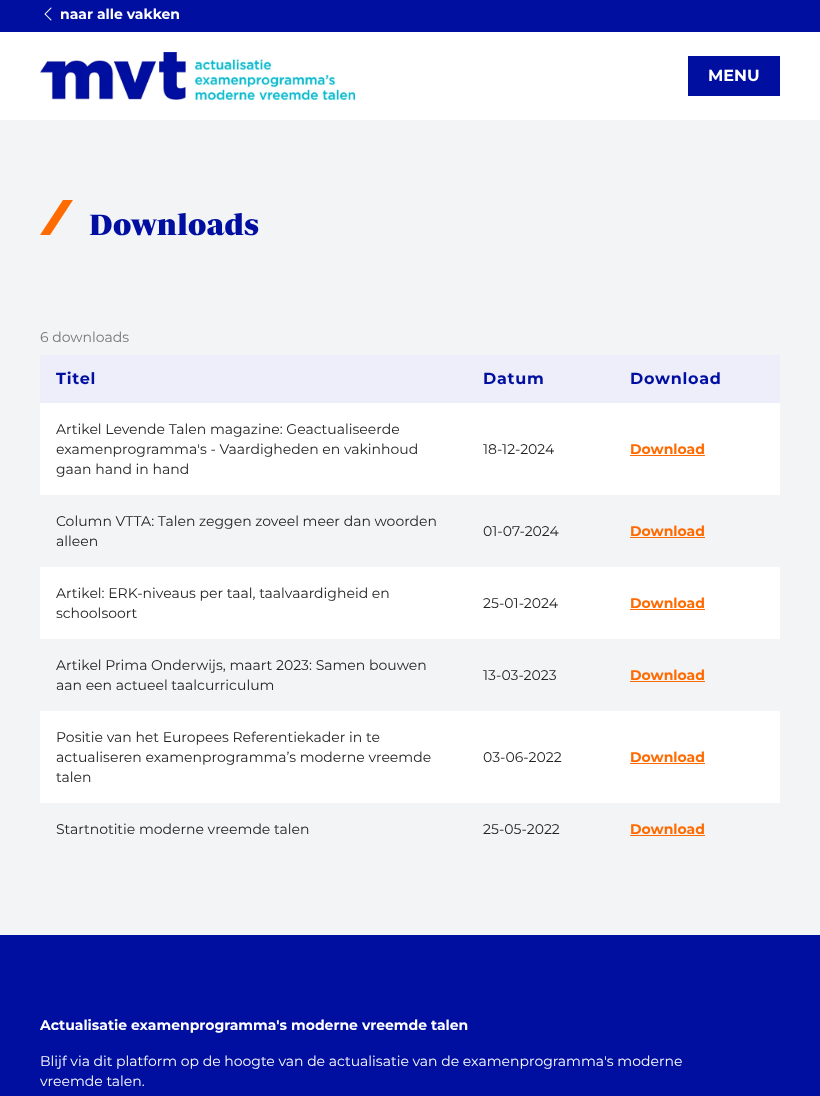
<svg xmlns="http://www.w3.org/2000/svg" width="820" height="1096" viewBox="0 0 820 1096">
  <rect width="100%" height="100%" fill="rgb(255,255,255)"/>
  <rect x="0" y="0" width="820" height="32" fill="rgb(0,15,160)"/>
  <image x="44" y="7" width="8" height="14" href="pic1.png"/>
  <text x="60" y="19" font-family="Montserrat" font-size="14" font-weight="bold" fill="rgb(255,255,255)">naar alle vakken</text>
  <image x="40" y="52" width="315" height="48" href="pic2.png"/>
  <rect x="688" y="56" width="92" height="40" fill="rgb(0,15,160)"/>
  <text x="708" y="81" font-family="Montserrat" font-size="16" font-weight="bold" fill="rgb(255,255,255)">MENU</text>
  <rect x="0" y="120" width="820" height="815" fill="rgb(243,244,246)"/>
  <path d="M63 200L40 235H50L73 200Z" fill="rgb(255,107,0)" fill-rule="evenodd"/>
  <text x="89" y="235" font-family="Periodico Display" font-size="30" font-weight="800" fill="rgb(0,15,160)">Downloads</text>
  <text x="40" y="342" font-family="Montserrat" font-size="14" fill="rgb(118,118,118)">6 downloads</text>
  <rect x="40" y="355" width="740" height="48" fill="rgb(237,238,249)"/>
  <g font-family="Montserrat" font-size="16" font-weight="bold" letter-spacing="0.75" fill="rgb(0,15,160)">
    <text x="56" y="384">Titel</text>
    <text x="483" y="384">Datum</text>
    <text x="630" y="384">Download</text>
  </g>
  <rect x="40" y="403" width="740" height="92" fill="rgb(255,255,255)"/>
  <g font-family="Montserrat" font-size="14" fill="rgb(34,34,34)">
    <text>
      <tspan x="56" y="434">Artikel Levende Talen magazine: Geactualiseerde</tspan>
      <tspan x="56" y="454">examenprogramma's - Vaardigheden en vakinhoud</tspan>
      <tspan x="56" y="474">gaan hand in hand</tspan>
    </text>
    <text x="483" y="454">18-12-2024</text>
  </g>
  <text x="630" y="454" font-family="Montserrat" font-size="14" font-weight="bold" fill="rgb(255,107,0)">Download</text>
  <rect x="630" y="455" width="75" height="1" fill="rgb(255,107,0)"/>
  <g font-family="Montserrat" font-size="14" fill="rgb(34,34,34)">
    <text>
      <tspan x="56" y="526">Column VTTA: Talen zeggen zoveel meer dan woorden</tspan>
      <tspan x="56" y="546">alleen</tspan>
    </text>
    <text x="483" y="536">01-07-2024</text>
  </g>
  <text x="630" y="536" font-family="Montserrat" font-size="14" font-weight="bold" fill="rgb(255,107,0)">Download</text>
  <rect x="630" y="537" width="75" height="1" fill="rgb(255,107,0)"/>
  <rect x="40" y="567" width="740" height="72" fill="rgb(255,255,255)"/>
  <g font-family="Montserrat" font-size="14" fill="rgb(34,34,34)">
    <text>
      <tspan x="56" y="598">Artikel: ERK-niveaus per taal, taalvaardigheid en</tspan>
      <tspan x="56" y="618">schoolsoort</tspan>
    </text>
    <text x="483" y="608">25-01-2024</text>
  </g>
  <text x="630" y="608" font-family="Montserrat" font-size="14" font-weight="bold" fill="rgb(255,107,0)">Download</text>
  <rect x="630" y="609" width="75" height="1" fill="rgb(255,107,0)"/>
  <g font-family="Montserrat" font-size="14" fill="rgb(34,34,34)">
    <text>
      <tspan x="56" y="670">Artikel Prima Onderwijs, maart 2023: Samen bouwen</tspan>
      <tspan x="56" y="690">aan een actueel taalcurriculum</tspan>
    </text>
    <text x="483" y="680">13-03-2023</text>
  </g>
  <text x="630" y="680" font-family="Montserrat" font-size="14" font-weight="bold" fill="rgb(255,107,0)">Download</text>
  <rect x="630" y="681" width="75" height="1" fill="rgb(255,107,0)"/>
  <rect x="40" y="711" width="740" height="92" fill="rgb(255,255,255)"/>
  <g font-family="Montserrat" font-size="14" fill="rgb(34,34,34)">
    <text>
      <tspan x="56" y="742">Positie van het Europees Referentiekader in te</tspan>
      <tspan x="56" y="762">actualiseren examenprogramma’s moderne vreemde</tspan>
      <tspan x="56" y="782">talen</tspan>
    </text>
    <text x="483" y="762">03-06-2022</text>
  </g>
  <text x="630" y="762" font-family="Montserrat" font-size="14" font-weight="bold" fill="rgb(255,107,0)">Download</text>
  <rect x="630" y="763" width="75" height="1" fill="rgb(255,107,0)"/>
  <g font-family="Montserrat" font-size="14" fill="rgb(34,34,34)">
    <text x="56" y="834">Startnotitie moderne vreemde talen</text>
    <text x="483" y="834">25-05-2022</text>
  </g>
  <text x="630" y="834" font-family="Montserrat" font-size="14" font-weight="bold" fill="rgb(255,107,0)">Download</text>
  <rect x="630" y="835" width="75" height="1" fill="rgb(255,107,0)"/>
  <rect x="0" y="935" width="820" height="161" fill="rgb(0,15,160)"/>
  <text x="40" y="1030" font-family="Montserrat" font-size="14" font-weight="bold" fill="rgb(255,255,255)">Actualisatie examenprogramma's moderne vreemde talen</text>
  <g font-family="Montserrat" font-size="14" fill="rgb(255,255,255)">
    <text>
      <tspan x="40" y="1066">Blijf via dit platform op de hoogte van de actualisatie van de examenprogramma's moderne</tspan>
      <tspan x="40" y="1086">vreemde talen.</tspan>
    </text>
  </g>
</svg>
